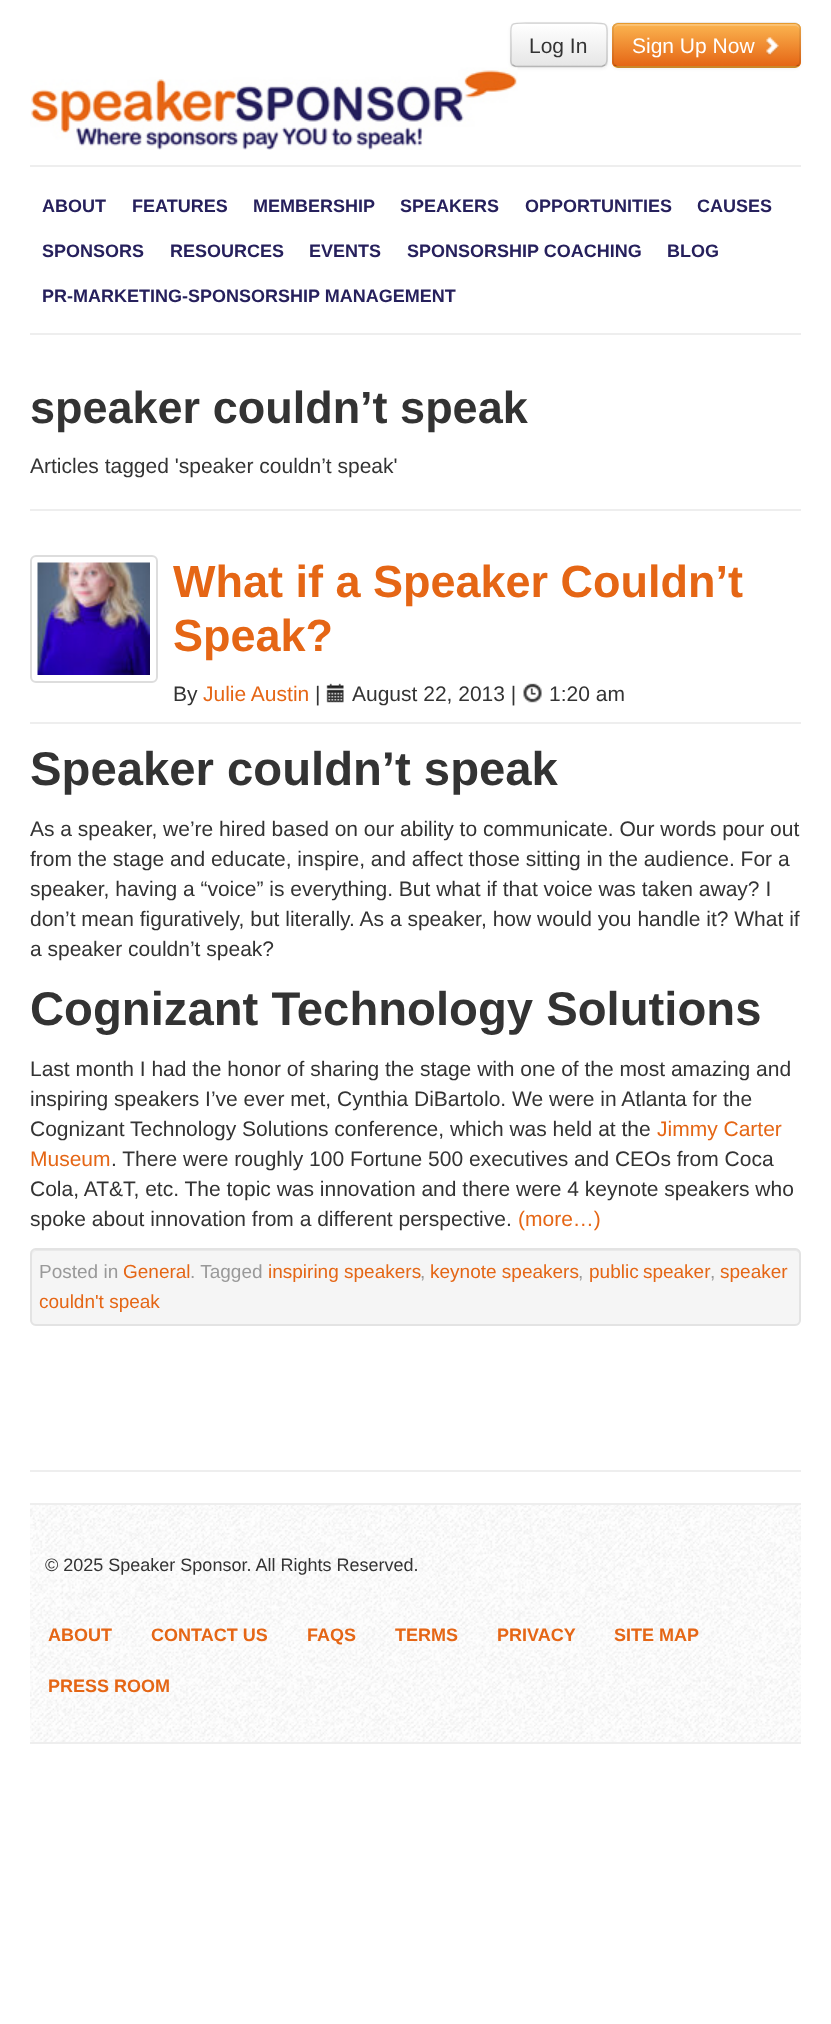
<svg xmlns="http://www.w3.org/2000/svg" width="831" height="2024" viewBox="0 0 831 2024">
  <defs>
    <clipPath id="clip1"><rect x="510" y="23" width="98" height="45" rx="6"/></clipPath>
    <linearGradient id="g1" gradientUnits="userSpaceOnUse" x1="559" y1="24" x2="559" y2="66"><stop offset="0" stop-color="rgb(255,255,255)"/><stop offset="1" stop-color="rgb(230,230,230)"/></linearGradient>
    <clipPath id="clip2"><rect x="612" y="23" width="189" height="45" rx="6"/></clipPath>
    <linearGradient id="g2" gradientUnits="userSpaceOnUse" x1="707" y1="24" x2="707" y2="66"><stop offset="0" stop-color="rgb(251,180,80)"/><stop offset="1" stop-color="rgb(229,102,21)"/></linearGradient>
  </defs>
  <rect width="100%" height="100%" fill="rgb(255,255,255)"/>
  <rect x="510" y="24" width="98" height="45" rx="6" fill="rgba(0,0,0,0.05)" filter="blur(1.5px)"/>
  <rect x="510" y="23" width="98" height="45" rx="6" fill="rgb(245,245,245)"/>
  <g clip-path="url(#clip1)">
    <rect x="510" y="24" width="98" height="42" fill="url(#g1)"/>
  </g>
  <path d="M516 26H602C604 26 606 28 606 30C606 21 593 24 587 24H531C525 24 512 21 512 30C512 28 514 26 516 26Z" fill="rgb(255,255,255)"/>
  <path d="M605 65L602 66.5H515.5L512.5 65" fill="none" stroke="rgba(0,0,0,0.25)" stroke-width="1.5"/>
  <path d="M512.5 65C510 63 511 59 511 56V45C511 21.5 507 23 530 23H587C610.5 23 607 21.5 607 45V56C607 59 607.5 63 605 65" fill="none" stroke="rgba(0,0,0,0.15)" stroke-width="1.5"/>
  <text x="529" y="53" font-family="Liberation Sans" font-size="21" fill="rgb(51,51,51)">Log In</text>
  <rect x="612" y="24" width="189" height="45" rx="6" fill="rgba(0,0,0,0.05)" filter="blur(1.5px)"/>
  <rect x="612" y="23" width="189" height="45" rx="6" fill="rgb(250,167,50)"/>
  <g clip-path="url(#clip2)">
    <rect x="612" y="24" width="189" height="42" fill="url(#g2)"/>
  </g>
  <path d="M618 26H795C797 26 800 28 800 30C800 27 799 25 796 24H618C615 25 614 27 614 30C614 28 616 26 618 26Z" fill="rgba(255,255,255,0.2)"/>
  <path d="M798.5 65C797.5 66 796.5 67 795 67H618C616.5 67 615.5 66 614.5 65" fill="none" stroke="rgba(0,0,0,0.25)" stroke-width="1.5"/>
  <path d="M614.5 65C613.5 64 613 63 613 61.5V28.5C613 27 613.5 26 614.5 25C615.5 24 616.5 23 618 23H795C796.5 23 797.5 24 798.5 25C799.5 26 800 27 800 28.5V61.5C800 63 799.5 64 798.5 65" fill="none" stroke="rgba(0,0,0,0.1)" stroke-width="1.5"/>
  <text x="632" y="53" font-family="Liberation Sans" font-size="21" fill="rgb(255,255,255)">Sign Up Now</text>
  <image x="766" y="37" width="13" height="19" href="pic1.png"/>
  <image x="30" y="67" width="488" height="83" href="pic2.png"/>
  <rect x="30" y="165" width="771" height="2" fill="rgb(238,238,238)"/>
  <g font-family="Liberation Sans" font-size="18" font-weight="bold" fill="rgb(38,32,92)">
    <text x="42" y="212">ABOUT</text>
    <text x="132" y="212">FEATURES</text>
    <text x="253" y="212">MEMBERSHIP</text>
    <text x="400" y="212">SPEAKERS</text>
    <text x="525" y="212">OPPORTUNITIES</text>
    <text x="697" y="212">CAUSES</text>
    <text x="42" y="257">SPONSORS</text>
    <text x="170" y="257">RESOURCES</text>
    <text x="309" y="257">EVENTS</text>
    <text x="407" y="257">SPONSORSHIP COACHING</text>
    <text x="667" y="257">BLOG</text>
    <text x="42" y="302">PR-MARKETING-SPONSORSHIP MANAGEMENT</text>
  </g>
  <rect x="30" y="333" width="771" height="2" fill="rgb(238,238,238)"/>
  <rect x="30" y="509" width="771" height="2" fill="rgb(238,238,238)"/>
  <text x="30" y="423" font-family="Liberation Sans" font-size="45" font-weight="bold" fill="rgb(51,51,51)">speaker couldn’t speak</text>
  <text x="30" y="473" font-family="Liberation Sans" font-size="21" fill="rgb(51,51,51)">Articles tagged 'speaker couldn’t speak'</text>
  <rect x="30" y="722" width="771" height="2" fill="rgb(238,238,238)"/>
  <rect x="31" y="556" width="126" height="126" rx="5" fill="none" stroke="rgb(221,221,221)" stroke-width="2"/>
  <image x="37" y="562" width="113" height="113" href="pic3.png"/>
  <g font-family="Liberation Sans" font-size="45" font-weight="bold" fill="rgb(229,102,21)">
    <text>
      <tspan x="173" y="597">What if a Speaker Couldn’t</tspan>
      <tspan x="173" y="651">Speak?</tspan>
    </text>
  </g>
  <text x="173" y="701" font-family="Liberation Sans" font-size="21" fill="rgb(51,51,51)">By</text>
  <text x="203" y="701" font-family="Liberation Sans" font-size="21" fill="rgb(229,102,21)">Julie Austin</text>
  <text x="315" y="701" font-family="Liberation Sans" font-size="21" fill="rgb(51,51,51)">|</text>
  <image x="326" y="683" width="18" height="20" href="pic4.png"/>
  <text x="352" y="701" font-family="Liberation Sans" font-size="21" fill="rgb(51,51,51)">August 22, 2013 |</text>
  <image x="523" y="683" width="19" height="20" href="pic5.png"/>
  <text x="549" y="701" font-family="Liberation Sans" font-size="21" fill="rgb(51,51,51)">1:20 am</text>
  <text x="30" y="785" font-family="Liberation Sans" font-size="47.25" font-weight="bold" fill="rgb(51,51,51)">Speaker couldn’t speak</text>
  <g font-family="Liberation Sans" font-size="21" fill="rgb(51,51,51)">
    <text>
      <tspan x="30" y="836">As a speaker, we’re hired based on our ability to communicate. Our words pour out</tspan>
      <tspan x="30" y="866">from the stage and educate, inspire, and affect those sitting in the audience. For a</tspan>
      <tspan x="30" y="896">speaker, having a “voice” is everything. But what if that voice was taken away? I</tspan>
      <tspan x="30" y="926">don’t mean figuratively, but literally. As a speaker, how would you handle it? What if</tspan>
      <tspan x="30" y="956">a speaker couldn’t speak?</tspan>
    </text>
  </g>
  <text x="30" y="1025" font-family="Liberation Sans" font-size="47.25" font-weight="bold" fill="rgb(51,51,51)">Cognizant Technology Solutions</text>
  <g font-family="Liberation Sans" font-size="21" fill="rgb(51,51,51)">
    <text>
      <tspan x="30" y="1076">Last month I had the honor of sharing the stage with one of the most amazing and</tspan>
      <tspan x="30" y="1106">inspiring speakers I’ve ever met, Cynthia DiBartolo. We were in Atlanta for the</tspan>
      <tspan x="30" y="1136">Cognizant Technology Solutions conference, which was held at the</tspan>
    </text>
  </g>
  <g font-family="Liberation Sans" font-size="21" fill="rgb(229,102,21)">
    <text x="657" y="1136">Jimmy Carter</text>
    <text x="30" y="1166">Museum</text>
  </g>
  <g font-family="Liberation Sans" font-size="21" fill="rgb(51,51,51)">
    <text x="111" y="1166">. There were roughly 100 Fortune 500 executives and CEOs from Coca</text>
    <text>
      <tspan x="30" y="1196">Cola, AT&amp;T, etc. The topic was innovation and there were 4 keynote speakers who</tspan>
      <tspan x="30" y="1226">spoke about innovation from a different perspective.</tspan>
    </text>
  </g>
  <text x="518" y="1226" font-family="Liberation Sans" font-size="21" fill="rgb(229,102,21)">(more…)</text>
  <rect x="30" y="1248" width="771" height="78" rx="6" fill="rgb(245,245,245)"/>
  <path d="M36 1251H795C797 1251 800 1253 800 1256V1255C800 1252 798 1250 795 1250H37C34 1250 32 1252 32 1255V1256C32 1253 34 1251 36 1251Z" fill="rgb(233,233,233)"/>
  <rect x="31" y="1249" width="769" height="76" rx="5" fill="none" stroke="rgb(227,227,227)" stroke-width="2"/>
  <text x="39" y="1278" font-family="Liberation Sans" font-size="19" fill="rgb(153,153,153)">Posted in</text>
  <text x="123" y="1278" font-family="Liberation Sans" font-size="19" fill="rgb(229,102,21)">General</text>
  <text x="190" y="1278" font-family="Liberation Sans" font-size="19" fill="rgb(153,153,153)">. Tagged</text>
  <text x="268" y="1278" font-family="Liberation Sans" font-size="19" fill="rgb(229,102,21)">inspiring speakers</text>
  <text x="420" y="1278" font-family="Liberation Sans" font-size="19" fill="rgb(153,153,153)">,</text>
  <text x="430" y="1278" font-family="Liberation Sans" font-size="19" fill="rgb(229,102,21)">keynote speakers</text>
  <text x="578" y="1278" font-family="Liberation Sans" font-size="19" fill="rgb(153,153,153)">,</text>
  <text x="589" y="1278" word-spacing="-1" font-family="Liberation Sans" font-size="19" fill="rgb(229,102,21)">public speaker</text>
  <text x="710" y="1278" font-family="Liberation Sans" font-size="19" fill="rgb(153,153,153)">,</text>
  <g font-family="Liberation Sans" font-size="19" fill="rgb(229,102,21)">
    <text x="720" y="1278">speaker</text>
    <text x="39" y="1308">couldn't speak</text>
  </g>
  <rect x="30" y="1470" width="771" height="2" fill="rgb(238,238,238)"/>
  <image x="30" y="1505" width="771" height="237" href="pic6.png"/>
  <rect x="30" y="1503" width="771" height="2" fill="rgb(238,238,238)"/>
  <rect x="30" y="1742" width="771" height="2" fill="rgb(238,238,238)"/>
  <text x="45" y="1571" font-family="Liberation Sans" font-size="18" fill="rgb(51,51,51)">© 2025 Speaker Sponsor. All Rights Reserved.</text>
  <g font-family="Liberation Sans" font-size="18" font-weight="bold" fill="rgb(229,102,21)">
    <text x="48" y="1641">ABOUT</text>
    <text x="151" y="1641">CONTACT US</text>
    <text x="307" y="1641">FAQS</text>
    <text x="395" y="1641">TERMS</text>
    <text x="497" y="1641">PRIVACY</text>
    <text x="614" y="1641">SITE MAP</text>
    <text x="48" y="1692">PRESS ROOM</text>
  </g>
</svg>
